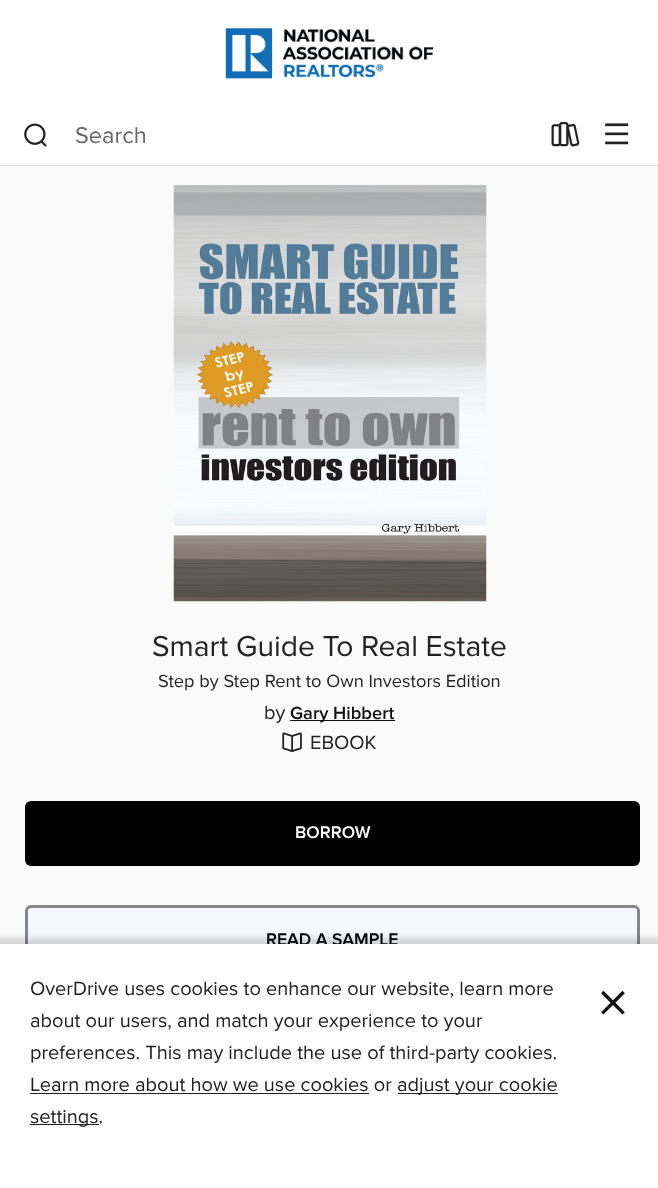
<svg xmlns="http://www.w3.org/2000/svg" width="658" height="1188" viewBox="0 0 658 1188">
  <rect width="100%" height="100%" fill="rgb(250,250,250)"/>
  <rect x="0" y="0" width="658" height="165" fill="rgb(255,255,255)"/>
  <image x="225" y="28" width="209" height="51" href="pic1.png"/>
  <rect x="0" y="165" width="658" height="1" fill="rgb(221,221,221)"/>
  <image x="24" y="123" width="23" height="24" href="pic2.png"/>
  <text x="75" y="143" font-family="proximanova" font-size="23.5" fill="rgb(102,102,102)">Search</text>
  <image x="551" y="121" width="29" height="26" href="pic3.png"/>
  <image x="605" y="123" width="24" height="22" href="pic4.png"/>
  <image x="173" y="185" width="314" height="417" href="pic5.png"/>
  <text x="152" y="656" font-family="proximanova" font-size="30" fill="rgb(34,34,34)">Smart Guide To Real Estate</text>
  <text x="158" y="687" font-family="proximanova" font-size="18.3" fill="rgb(34,34,34)">Step by Step Rent to Own Investors Edition</text>
  <text x="264" y="719" font-family="proximanova" font-size="20" fill="rgb(34,34,34)">by</text>
  <rect x="290" y="720" width="105" height="1" fill="rgb(17,17,17)"/>
  <text x="290" y="719" font-family="Proxima Nova" font-size="18.3" font-weight="600" fill="rgb(17,17,17)">Gary Hibbert</text>
  <image x="282" y="732" width="20" height="20" href="pic6.png"/>
  <text x="310" y="749" font-family="proximanova" font-size="20" fill="rgb(34,34,34)">EBOOK</text>
  <rect x="25" y="801" width="615" height="65" rx="6" fill="rgb(0,0,0)"/>
  <text x="295" y="838" font-family="Proxima Nova" font-size="17.5" font-weight="600" fill="rgb(255,255,255)">BORROW</text>
  <rect x="26.5" y="906.5" width="612" height="62" rx="4.5" fill="rgb(245,248,254)" stroke="rgb(136,136,136)" stroke-width="3"/>
  <text x="266" y="945" font-family="Proxima Nova" font-size="17.5" font-weight="600" fill="rgb(0,0,0)">READ A SAMPLE</text>
  <rect x="-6" y="938" width="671" height="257" fill="rgba(0,0,0,0.15)" filter="blur(3px)"/>
  <rect x="0" y="944" width="658" height="244" fill="rgb(255,255,255)"/>
  <g font-family="proximanova" font-size="20" fill="rgb(34,34,34)">
    <text>
      <tspan x="30" y="995">OverDrive uses cookies to enhance our website, learn more</tspan>
      <tspan x="30" y="1027">about our users, and match your experience to your</tspan>
      <tspan x="30" y="1059">preferences. This may include the use of third-party cookies.</tspan>
      <tspan x="30" y="1091">Learn more about how we use cookies or</tspan>
    </text>
  </g>
  <rect x="30" y="1093" width="339" height="1" fill="rgb(34,34,34)"/>
  <rect x="398" y="1093" width="160" height="1" fill="rgb(34,34,34)"/>
  <text x="397" y="1091" font-family="proximanova" font-size="20" fill="rgb(34,34,34)">adjust your cookie</text>
  <rect x="30" y="1124" width="69" height="1" fill="rgb(34,34,34)"/>
  <text x="30" y="1123" font-family="proximanova" font-size="20" fill="rgb(34,34,34)">settings.</text>
  <text x="597" y="1024" font-family="proximanova" font-size="64" fill="rgb(17,17,17)">×</text>
</svg>
